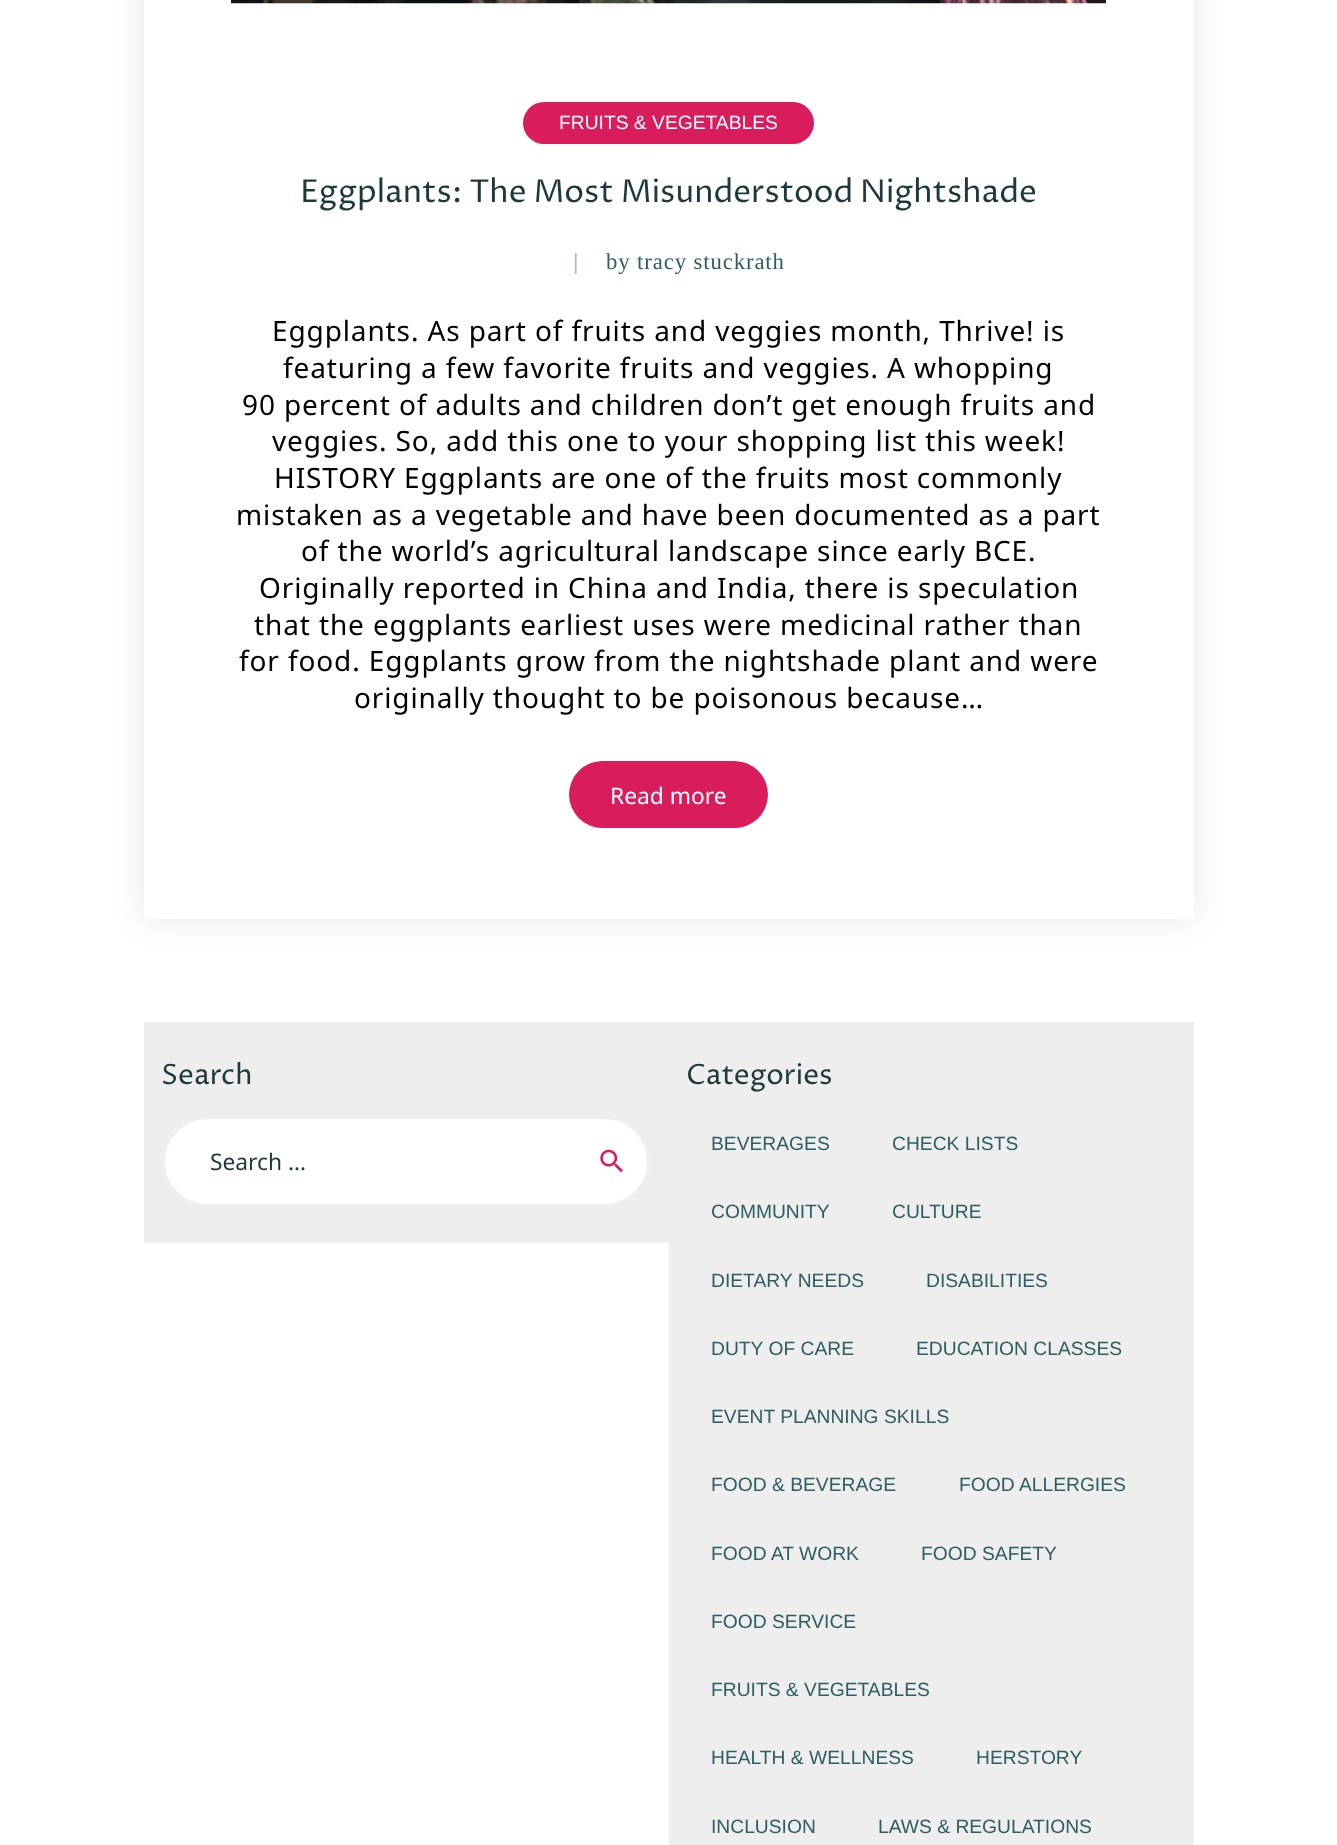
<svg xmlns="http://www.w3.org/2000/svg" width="1337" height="1845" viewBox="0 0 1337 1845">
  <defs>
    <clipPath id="clip1"><path d="M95 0H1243V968H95ZM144-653H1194V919H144Z" clip-rule="evenodd"/></clipPath>
  </defs>
  <rect width="100%" height="100%" fill="rgb(255,255,255)"/>
  <g clip-path="url(#clip1)">
    <rect x="144" y="-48" width="1050" height="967" fill="rgba(0,0,0,0.1)" filter="blur(16px)"/>
  </g>
  <image x="231" y="0" width="875" height="4" href="pic1.png"/>
  <rect x="523" y="102" width="291" height="42" rx="21" fill="rgb(216,28,92)"/>
  <text x="559" y="129" font-family="Liberation Sans" font-size="19.25" fill="rgb(255,255,255)">FRUITS &amp; VEGETABLES</text>
  <text x="300" y="202" font-family="Proza Libre" font-size="31.5" fill="rgb(28,57,61)">Eggplants: The Most Misunderstood Nightshade</text>
  <text x="570" y="269" font-family="Noto Sans" font-size="21" fill="rgb(164,185,187)">|</text>
  <text x="606" y="269" font-family="Liberation Serif" font-size="22.75" letter-spacing="0.88" fill="rgb(45,94,100)">by tracy stuckrath</text>
  <g font-family="Noto Sans" font-size="28" letter-spacing="0.88" fill="rgb(0,0,0)">
    <text x="272" y="341">Eggplants. As part of fruits and veggies month, Thrive! is</text>
    <text x="283" y="378">featuring a few favorite fruits and veggies. A whopping</text>
    <text x="242" y="415">90 percent of adults and children don’t get enough fruits and</text>
    <text x="272" y="451">veggies. So, add this one to your shopping list this week!</text>
    <text x="274" y="488">HISTORY Eggplants are one of the fruits most commonly</text>
    <text x="236" y="525">mistaken as a vegetable and have been documented as a part</text>
    <text x="301" y="561">of the world’s agricultural landscape since early BCE.</text>
    <text x="259" y="598">Originally reported in China and India, there is speculation</text>
    <text x="254" y="635">that the eggplants earliest uses were medicinal rather than</text>
    <text x="239" y="671">for food. Eggplants grow from the nightshade plant and were</text>
    <text x="354" y="708">originally thought to be poisonous because…</text>
  </g>
  <rect x="569" y="761" width="199" height="67" rx="33.5" fill="rgb(216,28,92)"/>
  <text x="610" y="804" font-family="Noto Sans" font-size="22.75" fill="rgb(255,255,255)">Read more</text>
  <rect x="144" y="1022" width="525" height="221" fill="rgb(238,238,238)"/>
  <text x="161" y="1084" font-family="Proza Libre" font-size="28" fill="rgb(28,57,61)">Search</text>
  <rect x="163" y="1117" width="486" height="89" rx="44.5" fill="rgb(255,255,255)" stroke="rgb(239,239,238)" stroke-width="4"/>
  <text x="210" y="1170" font-family="Noto Sans" font-size="22.75" fill="rgb(28,57,61)">Search …</text>
  <image x="600" y="1149" width="23" height="24" href="pic2.png"/>
  <rect x="669" y="1022" width="525" height="823" fill="rgb(238,238,238)"/>
  <text x="686" y="1084" font-family="Proza Libre" font-size="28" fill="rgb(28,57,61)">Categories</text>
  <g font-family="Liberation Sans" font-size="19.25" fill="rgb(45,94,100)">
    <text x="711" y="1150">BEVERAGES</text>
    <text x="892" y="1150">CHECK LISTS</text>
    <text x="711" y="1218">COMMUNITY</text>
    <text x="892" y="1218">CULTURE</text>
    <text x="711" y="1287">DIETARY NEEDS</text>
    <text x="926" y="1287">DISABILITIES</text>
    <text x="711" y="1355">DUTY OF CARE</text>
    <text x="916" y="1355">EDUCATION CLASSES</text>
    <text x="711" y="1423">EVENT PLANNING SKILLS</text>
    <text x="711" y="1491">FOOD &amp; BEVERAGE</text>
    <text x="959" y="1491">FOOD ALLERGIES</text>
    <text x="711" y="1560">FOOD AT WORK</text>
    <text x="921" y="1560">FOOD SAFETY</text>
    <text x="711" y="1628">FOOD SERVICE</text>
    <text x="711" y="1696">FRUITS &amp; VEGETABLES</text>
    <text x="711" y="1764">HEALTH &amp; WELLNESS</text>
    <text x="976" y="1764">HERSTORY</text>
    <text x="711" y="1833">INCLUSION</text>
    <text x="878" y="1833">LAWS &amp; REGULATIONS</text>
  </g>
</svg>
